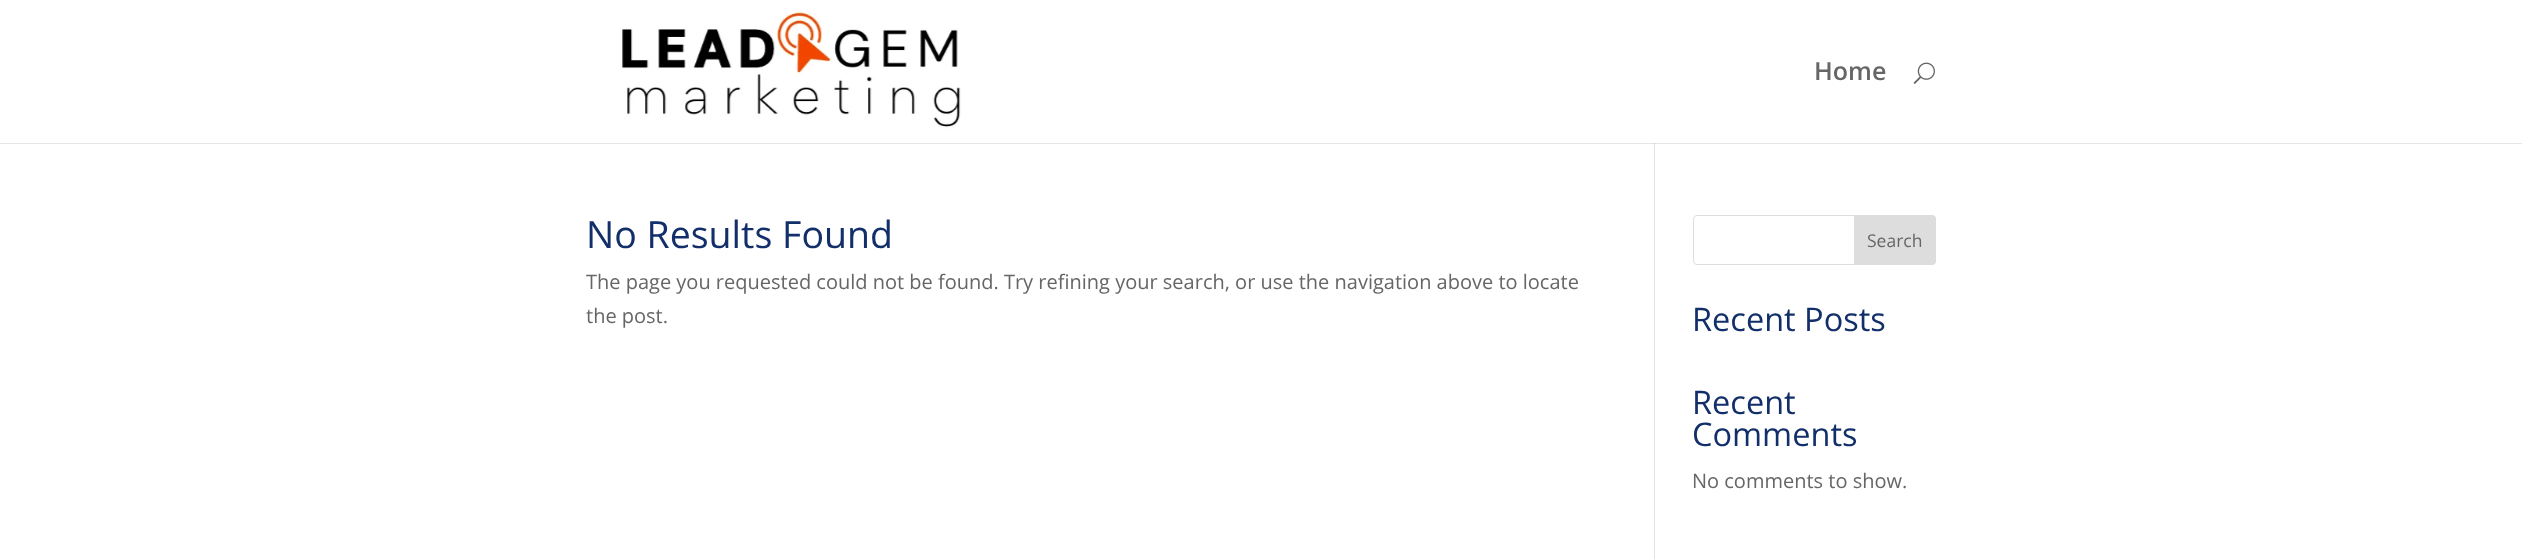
<svg xmlns="http://www.w3.org/2000/svg" width="2522" height="559" viewBox="0 0 2522 559">
  <rect width="100%" height="100%" fill="rgb(255,255,255)"/>
  <rect x="1654" y="143" width="1" height="416" fill="rgb(226,226,226)"/>
  <path d="M0 142V144H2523V1H2522V142Z" fill="rgba(0,0,0,0.1)"/>
  <rect x="0" y="142" width="2522" height="1" fill="rgb(255,255,255)"/>
  <image x="622" y="11" width="339" height="118" href="pic1.png"/>
  <text x="1814" y="80" font-family="Open Sans" font-size="25" font-weight="600" fill="rgb(102,102,102)">Home</text>
  <image x="1913" y="62" width="22" height="22" href="pic2.png"/>
  <text x="586" y="248" font-family="Open Sans" font-size="37.5" fill="rgb(18,47,106)">No Results Found</text>
  <g font-family="Open Sans" font-size="20" fill="rgb(102,102,102)">
    <text>
      <tspan x="586" y="289">The page you requested could not be found. Try refining your search, or use the navigation above to locate</tspan>
      <tspan x="586" y="323">the post.</tspan>
    </text>
  </g>
  <rect x="1693.5" y="215.5" width="242" height="49" rx="3.5" fill="none" stroke="rgb(221,221,221)"/>
  <path d="M1854.5 215.5H1932C1934 215.5 1935.5 217 1935.5 219V261C1935.5 263 1934 264.5 1932 264.5H1854.5Z" fill="rgb(221,221,221)" stroke="rgb(221,221,221)"/>
  <text x="1867" y="247" font-family="Open Sans" font-size="17.5" fill="rgb(102,102,102)">Search</text>
  <g font-family="Open Sans" font-size="32.5" fill="rgb(18,47,106)">
    <text x="1692" y="331">Recent Posts</text>
    <text>
      <tspan x="1692" y="414">Recent</tspan>
      <tspan x="1692" y="446">Comments</tspan>
    </text>
  </g>
  <text x="1692" y="488" font-family="Open Sans" font-size="20" fill="rgb(102,102,102)">No comments to show.</text>
</svg>
